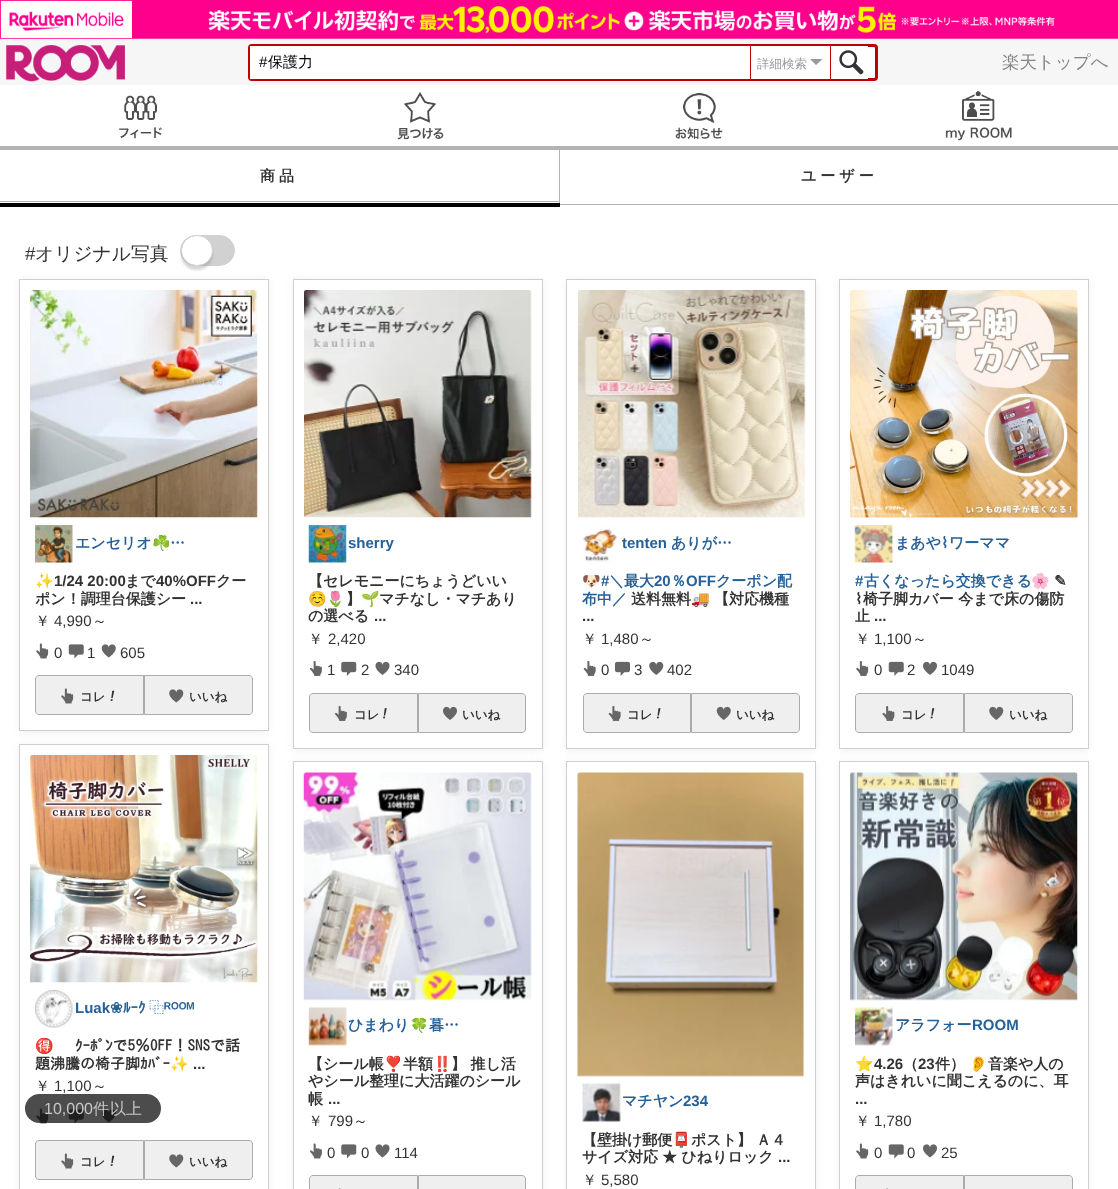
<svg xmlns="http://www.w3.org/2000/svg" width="1118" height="1189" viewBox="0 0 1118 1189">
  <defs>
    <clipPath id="clip1"><rect x="75" y="535" width="125" height="16"/></clipPath>
    <clipPath id="clip2"><rect x="349" y="1018" width="125" height="16"/></clipPath>
  </defs>
  <rect width="100%" height="100%" fill="rgb(255,255,255)"/>
  <image x="0" y="0" width="1118" height="39" href="pic1.png"/>
  <rect x="0" y="39" width="1118" height="46" fill="rgb(246,246,246)"/>
  <rect x="249.5" y="45.5" width="627" height="34" rx="2.5" fill="rgb(255,255,255)" stroke="rgb(191,0,0)" stroke-width="3"/>
  <rect x="250" y="46" width="500" height="33" fill="rgb(255,255,255)"/>
  <text x="259" y="67" font-family="Liberation Sans" font-size="15" fill="rgb(0,0,0)">#</text>
  <text x="268" y="67" font-family="WenQuanYi Zen Hei" font-size="15" font-weight="500" fill="rgb(0,0,0)">保護力</text>
  <rect x="751" y="46" width="79" height="33" fill="rgb(255,255,255)"/>
  <rect x="750" y="46" width="1" height="33" fill="rgb(191,0,0)"/>
  <text x="757" y="68" font-family="WenQuanYi Zen Hei" font-size="12.5" font-weight="500" fill="rgb(153,153,153)">詳細検索</text>
  <path d="M810 59H822.5L816 65Z" fill="rgb(153,153,153)"/>
  <rect x="831" y="46" width="37" height="33" fill="rgb(255,255,255)"/>
  <rect x="830" y="46" width="1" height="33" fill="rgb(191,0,0)"/>
  <image x="839" y="50" width="25" height="25" href="pic2.png"/>
  <image x="6" y="45" width="119" height="37" href="pic3.png"/>
  <text x="1002" y="68" font-family="WenQuanYi Zen Hei" font-size="17.5" font-weight="500" fill="rgb(132,132,132)">楽天トップへ</text>
  <image x="397" y="92" width="47" height="48" href="pic4.png"/>
  <rect x="560" y="146" width="558" height="4" fill="rgb(178,178,178)"/>
  <image x="945" y="91" width="67" height="50" href="pic5.png"/>
  <rect x="0" y="146" width="560" height="4" fill="rgb(178,178,178)"/>
  <image x="119" y="95" width="43" height="44" href="pic6.png"/>
  <image x="675" y="93" width="48" height="47" href="pic7.png"/>
  <rect x="0" y="203" width="560" height="4" fill="rgb(0,0,0)"/>
  <rect x="559" y="150" width="1" height="53" fill="rgb(178,178,178)"/>
  <rect x="0" y="201" width="560" height="1" fill="rgb(178,178,178)"/>
  <text x="260" y="181" font-family="WenQuanYi Zen Hei" font-size="15" font-weight="bold" letter-spacing="4" fill="rgb(51,51,51)">商品</text>
  <rect x="560" y="204" width="558" height="1" fill="rgb(178,178,178)"/>
  <text x="801" y="181" font-family="WenQuanYi Zen Hei" font-size="15" font-weight="bold" letter-spacing="4" fill="rgb(51,51,51)">ユーザー</text>
  <text x="25" y="260" font-family="Liberation Sans" font-size="18.75" fill="rgb(51,51,51)">#</text>
  <text x="35" y="260" font-family="WenQuanYi Zen Hei" font-size="18.75" font-weight="500" fill="rgb(51,51,51)">オリジナル写真</text>
  <rect x="180.5" y="235.5" width="54" height="30" rx="15" fill="rgb(209,209,209)" stroke="rgb(209,209,209)"/>
  <rect x="181" y="239" width="32" height="31" rx="15.5" fill="rgba(153,153,153,0.4)" filter="blur(1px)"/>
  <rect x="181.5" y="235.5" width="31" height="30" rx="15" fill="rgb(255,255,255)" stroke="rgb(209,209,209)"/>
  <rect x="19" y="280" width="250" height="453" rx="4" fill="rgb(239,239,239)" filter="blur(4px)"/>
  <rect x="19" y="279" width="250" height="452" rx="4" fill="rgb(255,255,255)"/>
  <rect x="19.5" y="279.5" width="249" height="451" fill="none" stroke="rgb(207,207,207)"/>
  <image x="30" y="290" width="228" height="228" href="pic8.png"/>
  <image x="35" y="525" width="38" height="38" href="pic9.png"/>
  <text x="75" y="548" font-family="WenQuanYi Zen Hei" font-size="15" font-weight="bold" fill="rgb(38,96,153)">エンセリオ</text>
  <g clip-path="url(#clip1)">
    <text x="152" y="548" font-family="Noto Color Emoji" font-size="15" font-weight="bold" fill="rgb(38,96,153)">☘️</text>
  </g>
  <text x="170" y="548" font-family="WenQuanYi Zen Hei" font-size="15" font-weight="bold" fill="rgb(38,96,153)">…</text>
  <text x="35" y="586" font-family="Noto Color Emoji" font-size="15" font-weight="bold" fill="rgb(51,51,51)">✨</text>
  <text x="54" y="586" font-family="Liberation Sans" font-size="15" font-weight="bold" fill="rgb(51,51,51)">1/24 20:00</text>
  <text x="125" y="586" font-family="WenQuanYi Zen Hei" font-size="15" font-weight="bold" fill="rgb(51,51,51)">まで</text>
  <text x="156" y="586" font-family="Liberation Sans" font-size="15" font-weight="bold" fill="rgb(51,51,51)">40%OFF</text>
  <g font-family="WenQuanYi Zen Hei" font-size="15" font-weight="bold" fill="rgb(51,51,51)">
    <text x="216" y="586">クー</text>
    <text x="35" y="604">ポン！調理台保護シー</text>
  </g>
  <text x="190" y="604" font-family="Liberation Sans" font-size="15" font-weight="bold" fill="rgb(51,51,51)">...</text>
  <text x="35" y="626" font-family="WenQuanYi Zen Hei" font-size="15" font-weight="500" fill="rgb(51,51,51)">￥</text>
  <text x="54" y="626" font-family="Liberation Sans" font-size="15" fill="rgb(51,51,51)">4,990</text>
  <text x="92" y="626" font-family="WenQuanYi Zen Hei" font-size="15" font-weight="500" fill="rgb(51,51,51)">～</text>
  <image x="36" y="643" width="13" height="16" href="pic10.png"/>
  <text x="54" y="658" font-family="Liberation Sans" font-size="15" fill="rgb(51,51,51)">0</text>
  <image x="68" y="644" width="16" height="15" href="pic11.png"/>
  <text x="87" y="658" font-family="Liberation Sans" font-size="15" fill="rgb(51,51,51)">1</text>
  <image x="101" y="644" width="15" height="14" href="pic12.png"/>
  <text x="120" y="658" font-family="Liberation Sans" font-size="15" fill="rgb(51,51,51)">605</text>
  <path d="M39 675.5H143.5V714.5H39C37 714.5 35.5 713 35.5 711V679C35.5 677 37 675.5 39 675.5Z" fill="rgb(239,239,239)" stroke="rgb(171,171,171)"/>
  <image x="61" y="688" width="13" height="16" href="pic13.png"/>
  <text x="80" y="701" font-family="WenQuanYi Zen Hei" font-size="12.5" font-weight="bold" fill="rgb(51,51,51)">コレ</text>
  <image x="110" y="690" width="5" height="11" href="pic14.png"/>
  <path d="M144.5 675.5H249C251 675.5 252.5 677 252.5 679V711C252.5 713 251 714.5 249 714.5H144.5Z" fill="rgb(239,239,239)" stroke="rgb(171,171,171)"/>
  <image x="169" y="689" width="15" height="14" href="pic15.png"/>
  <text x="189" y="701" font-family="WenQuanYi Zen Hei" font-size="12.5" font-weight="bold" fill="rgb(51,51,51)">いいね</text>
  <rect x="19" y="745" width="250" height="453" rx="4" fill="rgb(239,239,239)" filter="blur(4px)"/>
  <rect x="19" y="744" width="250" height="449" rx="4" fill="rgb(255,255,255)"/>
  <rect x="19.5" y="744.5" width="249" height="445" fill="none" stroke="rgb(207,207,207)"/>
  <image x="30" y="755" width="228" height="228" href="pic16.png"/>
  <image x="35" y="990" width="38" height="38" href="pic17.png"/>
  <text x="75" y="1013" font-family="Liberation Sans" font-size="15" font-weight="bold" fill="rgb(38,96,153)">Luak</text>
  <text x="110" y="1013" font-family="DejaVu Sans" font-size="15" font-weight="bold" fill="rgb(38,96,153)">❀</text>
  <text x="123" y="1013" font-family="IPAGothic" font-size="15" font-weight="bold" fill="rgb(38,96,153)">ﾙｰｸ</text>
  <text x="149" y="1013" font-family="Chiron Hei HK" font-size="15" font-weight="bold" fill="rgb(38,96,153)">⿻</text>
  <text x="164" y="1013" font-family="Liberation Sans" font-size="15" font-weight="bold" fill="rgb(38,96,153)">ᴿᴼᴼᴹ</text>
  <text x="35" y="1051" font-family="Noto Color Emoji" font-size="15" font-weight="bold" fill="rgb(51,51,51)">🉐</text>
  <g font-family="IPAGothic" font-size="15" font-weight="bold" fill="rgb(51,51,51)">
    <text x="75" y="1051">ｸｰﾎﾟﾝで5％OFF！SNSで話</text>
    <text x="35" y="1069">題沸騰の椅子脚ｶﾊﾞｰ</text>
  </g>
  <text x="170" y="1069" font-family="Noto Color Emoji" font-size="15" font-weight="bold" fill="rgb(51,51,51)">✨</text>
  <text x="193" y="1069" font-family="Liberation Sans" font-size="15" font-weight="bold" fill="rgb(51,51,51)">...</text>
  <text x="35" y="1091" font-family="WenQuanYi Zen Hei" font-size="15" font-weight="500" fill="rgb(51,51,51)">￥</text>
  <text x="54" y="1091" font-family="Liberation Sans" font-size="15" fill="rgb(51,51,51)">1,100</text>
  <text x="92" y="1091" font-family="WenQuanYi Zen Hei" font-size="15" font-weight="500" fill="rgb(51,51,51)">～</text>
  <image x="36" y="1108" width="13" height="16" href="pic10.png"/>
  <image x="68" y="1109" width="16" height="15" href="pic11.png"/>
  <image x="101" y="1109" width="15" height="14" href="pic12.png"/>
  <path d="M39 1140.5H143.5V1179.5H39C37 1179.5 35.5 1178 35.5 1176V1144C35.5 1142 37 1140.5 39 1140.5Z" fill="rgb(239,239,239)" stroke="rgb(171,171,171)"/>
  <image x="61" y="1153" width="13" height="16" href="pic13.png"/>
  <text x="80" y="1166" font-family="WenQuanYi Zen Hei" font-size="12.5" font-weight="bold" fill="rgb(51,51,51)">コレ</text>
  <image x="110" y="1155" width="5" height="11" href="pic14.png"/>
  <path d="M144.5 1140.5H249C251 1140.5 252.5 1142 252.5 1144V1176C252.5 1178 251 1179.5 249 1179.5H144.5Z" fill="rgb(239,239,239)" stroke="rgb(171,171,171)"/>
  <image x="169" y="1154" width="15" height="14" href="pic15.png"/>
  <text x="189" y="1166" font-family="WenQuanYi Zen Hei" font-size="12.5" font-weight="bold" fill="rgb(51,51,51)">いいね</text>
  <rect x="293" y="280" width="250" height="470" rx="4" fill="rgb(239,239,239)" filter="blur(4px)"/>
  <rect x="293" y="279" width="250" height="470" rx="4" fill="rgb(255,255,255)"/>
  <rect x="293.5" y="279.5" width="249" height="469" fill="none" stroke="rgb(207,207,207)"/>
  <image x="304" y="290" width="228" height="228" href="pic18.png"/>
  <image x="308" y="525" width="39" height="38" href="pic19.png"/>
  <text x="348" y="548" font-family="Liberation Sans" font-size="15" font-weight="bold" fill="rgb(38,96,153)">sherry</text>
  <text x="308" y="586" font-family="WenQuanYi Zen Hei" font-size="15" font-weight="bold" fill="rgb(51,51,51)">【セレモニーにちょうどいい</text>
  <text x="308" y="604" font-family="Noto Color Emoji" font-size="15" font-weight="bold" fill="rgb(51,51,51)">☺️🌷</text>
  <text x="346" y="604" font-family="WenQuanYi Zen Hei" font-size="15" font-weight="bold" fill="rgb(51,51,51)">】</text>
  <text x="361" y="604" font-family="Noto Color Emoji" font-size="15" font-weight="bold" fill="rgb(51,51,51)">🌱</text>
  <g font-family="WenQuanYi Zen Hei" font-size="15" font-weight="bold" fill="rgb(51,51,51)">
    <text x="379" y="604">マチなし・マチあり</text>
    <text x="308" y="621">の選べる</text>
  </g>
  <text x="374" y="621" font-family="Liberation Sans" font-size="15" font-weight="bold" fill="rgb(51,51,51)">...</text>
  <text x="308" y="644" font-family="WenQuanYi Zen Hei" font-size="15" font-weight="500" fill="rgb(51,51,51)">￥</text>
  <text x="328" y="644" font-family="Liberation Sans" font-size="15" fill="rgb(51,51,51)">2,420</text>
  <image x="310" y="661" width="12" height="15" href="pic20.png"/>
  <text x="327" y="675" font-family="Liberation Sans" font-size="15" fill="rgb(51,51,51)">1</text>
  <image x="341" y="661" width="16" height="15" href="pic21.png"/>
  <text x="361" y="675" font-family="Liberation Sans" font-size="15" fill="rgb(51,51,51)">2</text>
  <image x="375" y="661" width="15" height="14" href="pic22.png"/>
  <text x="394" y="675" font-family="Liberation Sans" font-size="15" fill="rgb(51,51,51)">340</text>
  <path d="M313 693.5H417.5V732.5H313C311 732.5 309.5 731 309.5 729V697C309.5 695 311 693.5 313 693.5Z" fill="rgb(239,239,239)" stroke="rgb(171,171,171)"/>
  <image x="335" y="706" width="12" height="15" href="pic23.png"/>
  <text x="354" y="719" font-family="WenQuanYi Zen Hei" font-size="12.5" font-weight="bold" fill="rgb(51,51,51)">コレ</text>
  <image x="383" y="708" width="4" height="11" href="pic24.png"/>
  <path d="M418.5 693.5H522C524 693.5 525.5 695 525.5 697V729C525.5 731 524 732.5 522 732.5H418.5Z" fill="rgb(239,239,239)" stroke="rgb(171,171,171)"/>
  <image x="443" y="706" width="14" height="14" href="pic25.png"/>
  <text x="462" y="719" font-family="WenQuanYi Zen Hei" font-size="12.5" font-weight="bold" fill="rgb(51,51,51)">いいね</text>
  <rect x="293" y="763" width="250" height="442" rx="4" fill="rgb(239,239,239)" filter="blur(4px)"/>
  <rect x="293" y="761" width="250" height="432" rx="4" fill="rgb(255,255,255)"/>
  <rect x="293.5" y="761.5" width="249" height="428" fill="none" stroke="rgb(207,207,207)"/>
  <image x="303" y="772" width="229" height="229" href="pic26.png"/>
  <image x="308" y="1007" width="39" height="39" href="pic27.png"/>
  <text x="348" y="1030" font-family="WenQuanYi Zen Hei" font-size="15" font-weight="bold" fill="rgb(38,96,153)">ひまわり</text>
  <g clip-path="url(#clip2)">
    <text x="410" y="1030" font-family="Noto Color Emoji" font-size="15" font-weight="bold" fill="rgb(38,96,153)">🍀</text>
    <text x="429" y="1030" font-family="WenQuanYi Zen Hei" font-size="15" font-weight="bold" fill="rgb(38,96,153)">暮…</text>
  </g>
  <text x="308" y="1069" font-family="WenQuanYi Zen Hei" font-size="15" font-weight="bold" fill="rgb(51,51,51)">【シール帳</text>
  <text x="384" y="1069" font-family="Noto Color Emoji" font-size="15" font-weight="bold" fill="rgb(51,51,51)">❣️</text>
  <text x="403" y="1069" font-family="WenQuanYi Zen Hei" font-size="15" font-weight="bold" fill="rgb(51,51,51)">半額</text>
  <text x="433" y="1069" font-family="Noto Color Emoji" font-size="15" font-weight="bold" fill="rgb(51,51,51)">‼️</text>
  <g font-family="WenQuanYi Zen Hei" font-size="15" font-weight="bold" fill="rgb(51,51,51)">
    <text x="451" y="1069">】 推し活</text>
    <text>
      <tspan x="308" y="1086">やシール整理に大活躍のシール</tspan>
      <tspan x="308" y="1104">帳</tspan>
    </text>
  </g>
  <text x="328" y="1104" font-family="Liberation Sans" font-size="15" font-weight="bold" fill="rgb(51,51,51)">...</text>
  <text x="308" y="1126" font-family="WenQuanYi Zen Hei" font-size="15" font-weight="500" fill="rgb(51,51,51)">￥</text>
  <text x="328" y="1126" font-family="Liberation Sans" font-size="15" fill="rgb(51,51,51)">799</text>
  <text x="353" y="1126" font-family="WenQuanYi Zen Hei" font-size="15" font-weight="500" fill="rgb(51,51,51)">～</text>
  <image x="310" y="1143" width="12" height="16" href="pic28.png"/>
  <text x="327" y="1158" font-family="Liberation Sans" font-size="15" fill="rgb(51,51,51)">0</text>
  <image x="341" y="1144" width="16" height="15" href="pic29.png"/>
  <text x="361" y="1158" font-family="Liberation Sans" font-size="15" fill="rgb(51,51,51)">0</text>
  <image x="375" y="1144" width="15" height="14" href="pic30.png"/>
  <text x="394" y="1158" font-family="Liberation Sans" font-size="15" fill="rgb(51,51,51)">114</text>
  <path d="M313 1175.5H417.5V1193.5H313C311 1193.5 309.5 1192 309.5 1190V1179C309.5 1177 311 1175.5 313 1175.5Z" fill="rgb(239,239,239)" stroke="rgb(171,171,171)"/>
  <image x="338" y="1188" width="3" height="1" href="pic31.png"/>
  <path d="M418.5 1175.5H522C524 1175.5 525.5 1177 525.5 1179V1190C525.5 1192 524 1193.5 522 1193.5H418.5Z" fill="rgb(239,239,239)" stroke="rgb(171,171,171)"/>
  <rect x="566" y="280" width="250" height="470" rx="4" fill="rgb(239,239,239)" filter="blur(4px)"/>
  <rect x="566" y="279" width="250" height="470" rx="4" fill="rgb(255,255,255)"/>
  <rect x="566.5" y="279.5" width="249" height="469" fill="none" stroke="rgb(207,207,207)"/>
  <image x="578" y="290" width="228" height="228" href="pic32.png"/>
  <image x="582" y="525" width="36" height="37" href="pic33.png"/>
  <text x="622" y="548" font-family="Liberation Sans" font-size="15" font-weight="bold" fill="rgb(38,96,153)">tenten</text>
  <text x="671" y="548" font-family="WenQuanYi Zen Hei" font-size="15" font-weight="bold" fill="rgb(38,96,153)">ありが…</text>
  <text x="582" y="586" font-family="Noto Color Emoji" font-size="15" font-weight="bold" fill="rgb(51,51,51)">🐶</text>
  <text x="601" y="586" font-family="Liberation Sans" font-size="15" font-weight="bold" fill="rgb(38,96,153)">#</text>
  <text x="609" y="586" font-family="WenQuanYi Zen Hei" font-size="15" font-weight="bold" fill="rgb(38,96,153)">＼最大</text>
  <text x="654" y="586" font-family="Liberation Sans" font-size="15" font-weight="bold" fill="rgb(38,96,153)">20</text>
  <text x="671" y="586" font-family="WenQuanYi Zen Hei" font-size="15" font-weight="bold" fill="rgb(38,96,153)">％</text>
  <text x="686" y="586" font-family="Liberation Sans" font-size="15" font-weight="bold" fill="rgb(38,96,153)">OFF</text>
  <g font-family="WenQuanYi Zen Hei" font-size="15" font-weight="bold" fill="rgb(38,96,153)">
    <text x="716" y="586">クーポン配</text>
    <text x="582" y="604">布中／</text>
  </g>
  <text x="631" y="604" font-family="WenQuanYi Zen Hei" font-size="15" font-weight="bold" fill="rgb(51,51,51)">送料無料</text>
  <text x="691" y="604" font-family="Noto Color Emoji" font-size="15" font-weight="bold" fill="rgb(51,51,51)">🚚</text>
  <text x="714" y="604" font-family="WenQuanYi Zen Hei" font-size="15" font-weight="bold" fill="rgb(51,51,51)">【対応機種</text>
  <text x="582" y="621" font-family="Liberation Sans" font-size="15" font-weight="bold" fill="rgb(51,51,51)">...</text>
  <text x="582" y="644" font-family="WenQuanYi Zen Hei" font-size="15" font-weight="500" fill="rgb(51,51,51)">￥</text>
  <text x="601" y="644" font-family="Liberation Sans" font-size="15" fill="rgb(51,51,51)">1,480</text>
  <text x="639" y="644" font-family="WenQuanYi Zen Hei" font-size="15" font-weight="500" fill="rgb(51,51,51)">～</text>
  <image x="583" y="661" width="13" height="15" href="pic34.png"/>
  <text x="601" y="675" font-family="Liberation Sans" font-size="15" fill="rgb(51,51,51)">0</text>
  <image x="615" y="661" width="15" height="15" href="pic35.png"/>
  <text x="634" y="675" font-family="Liberation Sans" font-size="15" fill="rgb(51,51,51)">3</text>
  <image x="649" y="661" width="15" height="14" href="pic36.png"/>
  <text x="667" y="675" font-family="Liberation Sans" font-size="15" fill="rgb(51,51,51)">402</text>
  <path d="M587 693.5H690.5V732.5H587C585 732.5 583.5 731 583.5 729V697C583.5 695 585 693.5 587 693.5Z" fill="rgb(239,239,239)" stroke="rgb(171,171,171)"/>
  <image x="608" y="706" width="13" height="15" href="pic37.png"/>
  <text x="627" y="719" font-family="WenQuanYi Zen Hei" font-size="12.5" font-weight="bold" fill="rgb(51,51,51)">コレ</text>
  <image x="656" y="708" width="5" height="11" href="pic38.png"/>
  <path d="M691.5 693.5H796C798 693.5 799.5 695 799.5 697V729C799.5 731 798 732.5 796 732.5H691.5Z" fill="rgb(239,239,239)" stroke="rgb(171,171,171)"/>
  <image x="716" y="706" width="15" height="14" href="pic39.png"/>
  <text x="736" y="719" font-family="WenQuanYi Zen Hei" font-size="12.5" font-weight="bold" fill="rgb(51,51,51)">いいね</text>
  <rect x="566" y="763" width="250" height="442" rx="4" fill="rgb(239,239,239)" filter="blur(4px)"/>
  <rect x="566" y="761" width="250" height="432" rx="4" fill="rgb(255,255,255)"/>
  <rect x="566.5" y="761.5" width="249" height="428" fill="none" stroke="rgb(207,207,207)"/>
  <image x="577" y="772" width="228" height="305" href="pic40.png"/>
  <image x="582" y="1083" width="39" height="39" href="pic41.png"/>
  <text x="622" y="1106" font-family="WenQuanYi Zen Hei" font-size="15" font-weight="bold" fill="rgb(38,96,153)">マチヤン</text>
  <text x="683" y="1106" font-family="Liberation Sans" font-size="15" font-weight="bold" fill="rgb(38,96,153)">234</text>
  <text x="582" y="1145" font-family="WenQuanYi Zen Hei" font-size="15" font-weight="bold" fill="rgb(51,51,51)">【壁掛け郵便</text>
  <text x="672" y="1145" font-family="Noto Color Emoji" font-size="15" font-weight="bold" fill="rgb(51,51,51)">📮</text>
  <g font-family="WenQuanYi Zen Hei" font-size="15" font-weight="bold" fill="rgb(51,51,51)">
    <text x="691" y="1145">ポスト】</text>
    <text x="756" y="1145">Ａ４</text>
    <text x="582" y="1162">サイズ対応</text>
    <text x="662" y="1162">★ ひねりロック</text>
  </g>
  <text x="778" y="1162" font-family="Liberation Sans" font-size="15" font-weight="bold" fill="rgb(51,51,51)">...</text>
  <text x="582" y="1185" font-family="WenQuanYi Zen Hei" font-size="15" font-weight="500" fill="rgb(51,51,51)">￥</text>
  <text x="601" y="1185" font-family="Liberation Sans" font-size="15" fill="rgb(51,51,51)">5,580</text>
  <rect x="839" y="280" width="250" height="470" rx="4" fill="rgb(239,239,239)" filter="blur(4px)"/>
  <rect x="839" y="279" width="250" height="470" rx="4" fill="rgb(255,255,255)"/>
  <rect x="839.5" y="279.5" width="249" height="469" fill="none" stroke="rgb(207,207,207)"/>
  <image x="850" y="290" width="228" height="228" href="pic42.png"/>
  <image x="854" y="525" width="40" height="38" href="pic43.png"/>
  <text x="895" y="548" font-family="WenQuanYi Zen Hei" font-size="15" font-weight="bold" fill="rgb(38,96,153)">まあや</text>
  <text x="941" y="548" font-family="DejaVu Sans" font-size="15" font-weight="bold" fill="rgb(38,96,153)">⌇</text>
  <text x="949" y="548" font-family="WenQuanYi Zen Hei" font-size="15" font-weight="bold" fill="rgb(38,96,153)">ワーママ</text>
  <text x="855" y="586" font-family="Liberation Sans" font-size="15" font-weight="bold" fill="rgb(38,96,153)">#</text>
  <text x="864" y="586" font-family="WenQuanYi Zen Hei" font-size="15" font-weight="bold" fill="rgb(38,96,153)">古くなったら交換できる</text>
  <text x="1031" y="586" font-family="Noto Color Emoji" font-size="15" font-weight="bold" fill="rgb(38,96,153)">🌸</text>
  <g font-family="DejaVu Sans" font-size="15" font-weight="bold" fill="rgb(51,51,51)">
    <text x="1054" y="586">✎</text>
    <text x="855" y="604">⌇</text>
  </g>
  <g font-family="WenQuanYi Zen Hei" font-size="15" font-weight="bold" fill="rgb(51,51,51)">
    <text x="863" y="604">椅子脚カバー 今まで床の傷防</text>
    <text x="855" y="621">止</text>
  </g>
  <text x="874" y="621" font-family="Liberation Sans" font-size="15" font-weight="bold" fill="rgb(51,51,51)">...</text>
  <text x="855" y="644" font-family="WenQuanYi Zen Hei" font-size="15" font-weight="500" fill="rgb(51,51,51)">￥</text>
  <text x="874" y="644" font-family="Liberation Sans" font-size="15" fill="rgb(51,51,51)">1,100</text>
  <text x="912" y="644" font-family="WenQuanYi Zen Hei" font-size="15" font-weight="500" fill="rgb(51,51,51)">～</text>
  <image x="856" y="661" width="13" height="15" href="pic44.png"/>
  <text x="874" y="675" font-family="Liberation Sans" font-size="15" fill="rgb(51,51,51)">0</text>
  <image x="888" y="661" width="16" height="15" href="pic45.png"/>
  <text x="907" y="675" font-family="Liberation Sans" font-size="15" fill="rgb(51,51,51)">2</text>
  <image x="923" y="661" width="14" height="14" href="pic46.png"/>
  <text x="941" y="675" font-family="Liberation Sans" font-size="15" fill="rgb(51,51,51)">1049</text>
  <path d="M859 693.5H963.5V732.5H859C857 732.5 855.5 731 855.5 729V697C855.5 695 857 693.5 859 693.5Z" fill="rgb(239,239,239)" stroke="rgb(171,171,171)"/>
  <image x="882" y="706" width="13" height="15" href="pic47.png"/>
  <text x="901" y="719" font-family="WenQuanYi Zen Hei" font-size="12.5" font-weight="bold" fill="rgb(51,51,51)">コレ</text>
  <image x="930" y="708" width="5" height="11" href="pic48.png"/>
  <path d="M964.5 693.5H1069C1071 693.5 1072.5 695 1072.5 697V729C1072.5 731 1071 732.5 1069 732.5H964.5Z" fill="rgb(239,239,239)" stroke="rgb(171,171,171)"/>
  <image x="989" y="706" width="15" height="14" href="pic49.png"/>
  <text x="1009" y="719" font-family="WenQuanYi Zen Hei" font-size="12.5" font-weight="bold" fill="rgb(51,51,51)">いいね</text>
  <rect x="839" y="763" width="250" height="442" rx="4" fill="rgb(239,239,239)" filter="blur(4px)"/>
  <rect x="839" y="761" width="250" height="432" rx="4" fill="rgb(255,255,255)"/>
  <rect x="839.5" y="761.5" width="249" height="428" fill="none" stroke="rgb(207,207,207)"/>
  <image x="850" y="772" width="228" height="229" href="pic50.png"/>
  <image x="855" y="1007" width="38" height="39" href="pic51.png"/>
  <text x="895" y="1030" font-family="WenQuanYi Zen Hei" font-size="15" font-weight="bold" fill="rgb(38,96,153)">アラフォー</text>
  <text x="972" y="1030" font-family="Liberation Sans" font-size="15" font-weight="bold" fill="rgb(38,96,153)">ROOM</text>
  <text x="855" y="1069" font-family="Noto Color Emoji" font-size="15" font-weight="bold" fill="rgb(51,51,51)">⭐</text>
  <text x="874" y="1069" font-family="Liberation Sans" font-size="15" font-weight="bold" fill="rgb(51,51,51)">4.26</text>
  <text x="903" y="1069" font-family="WenQuanYi Zen Hei" font-size="15" font-weight="bold" fill="rgb(51,51,51)">（</text>
  <text x="918" y="1069" font-family="Liberation Sans" font-size="15" font-weight="bold" fill="rgb(51,51,51)">23</text>
  <text x="935" y="1069" font-family="WenQuanYi Zen Hei" font-size="15" font-weight="bold" fill="rgb(51,51,51)">件）</text>
  <text x="969" y="1069" font-family="Noto Color Emoji" font-size="15" font-weight="bold" fill="rgb(51,51,51)">👂</text>
  <g font-family="WenQuanYi Zen Hei" font-size="15" font-weight="bold" fill="rgb(51,51,51)">
    <text x="988" y="1069">音楽や人の</text>
    <text x="855" y="1086">声はきれいに聞こえるのに、耳</text>
  </g>
  <text x="855" y="1104" font-family="Liberation Sans" font-size="15" font-weight="bold" fill="rgb(51,51,51)">...</text>
  <text x="855" y="1126" font-family="WenQuanYi Zen Hei" font-size="15" font-weight="500" fill="rgb(51,51,51)">￥</text>
  <text x="874" y="1126" font-family="Liberation Sans" font-size="15" fill="rgb(51,51,51)">1,780</text>
  <image x="856" y="1143" width="13" height="16" href="pic10.png"/>
  <text x="874" y="1158" font-family="Liberation Sans" font-size="15" fill="rgb(51,51,51)">0</text>
  <image x="888" y="1144" width="16" height="15" href="pic11.png"/>
  <text x="907" y="1158" font-family="Liberation Sans" font-size="15" fill="rgb(51,51,51)">0</text>
  <image x="923" y="1144" width="14" height="14" href="pic52.png"/>
  <text x="941" y="1158" font-family="Liberation Sans" font-size="15" fill="rgb(51,51,51)">25</text>
  <path d="M859 1175.5H963.5V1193.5H859C857 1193.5 855.5 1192 855.5 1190V1179C855.5 1177 857 1175.5 859 1175.5Z" fill="rgb(239,239,239)" stroke="rgb(171,171,171)"/>
  <image x="886" y="1188" width="2" height="1" href="pic53.png"/>
  <path d="M964.5 1175.5H1069C1071 1175.5 1072.5 1177 1072.5 1179V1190C1072.5 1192 1071 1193.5 1069 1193.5H964.5Z" fill="rgb(239,239,239)" stroke="rgb(171,171,171)"/>
  <rect x="25" y="1094" width="136" height="29" rx="14.5" fill="rgba(0,0,0,0.7)"/>
  <text x="44" y="1114" font-family="Liberation Sans" font-size="16" fill="rgb(199,199,199)">10,000</text>
  <g font-family="WenQuanYi Zen Hei" font-size="16" font-weight="500" fill="rgb(199,199,199)">
    <text x="93" y="1114">件</text>
    <text x="110" y="1114">以上</text>
  </g>
</svg>
